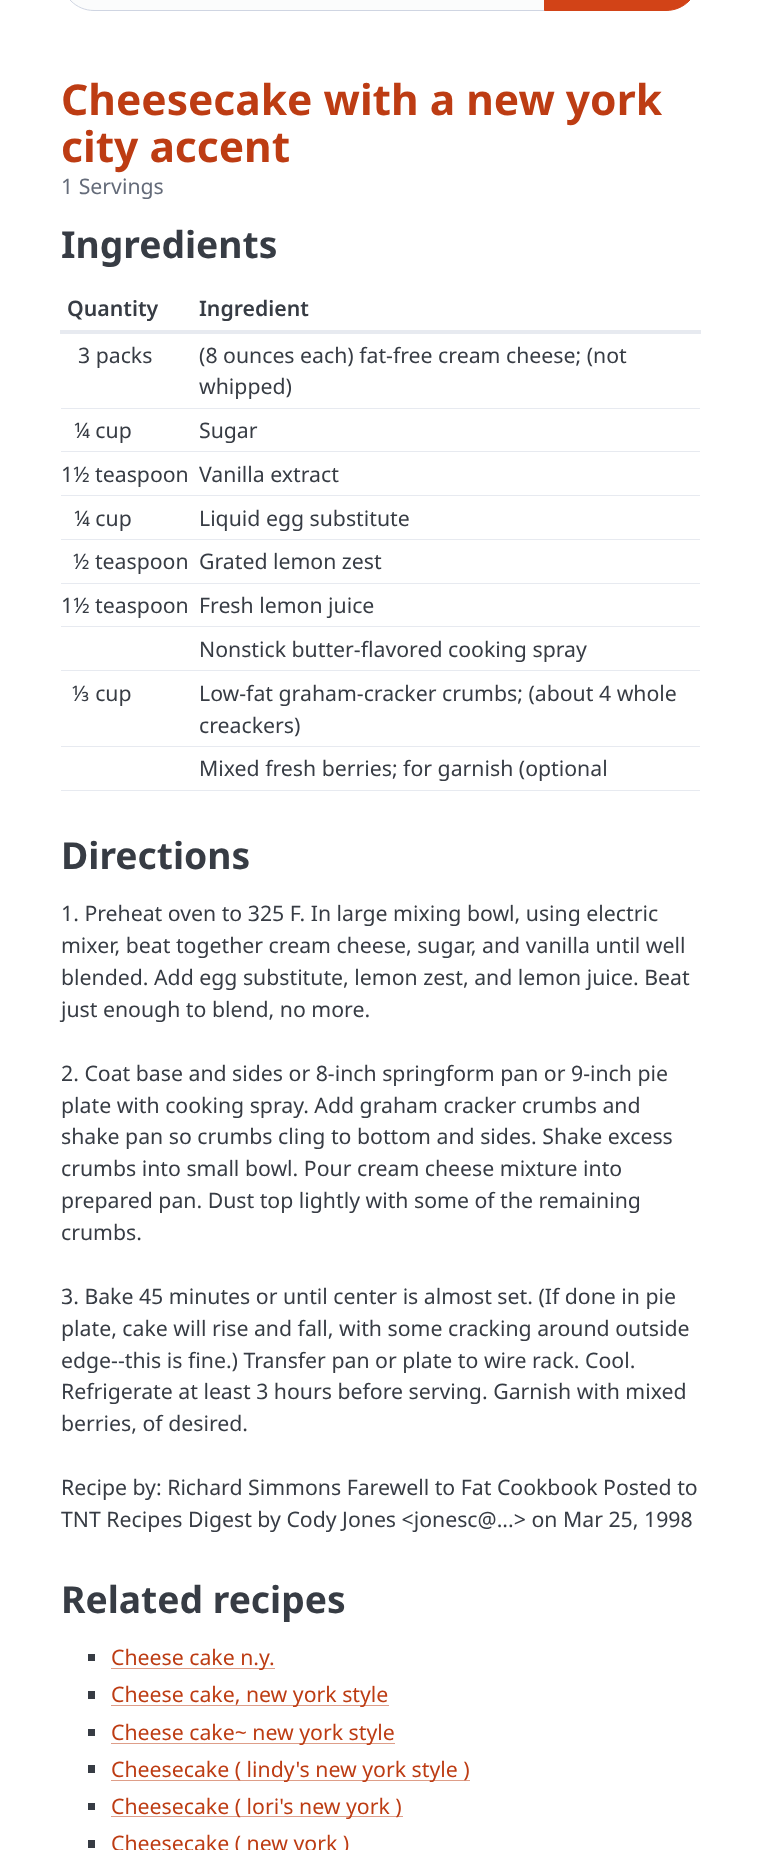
<svg xmlns="http://www.w3.org/2000/svg" width="760" height="1850" viewBox="0 0 760 1850">
  <rect width="100%" height="100%" fill="rgb(255,255,255)"/>
  <path d="M94-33.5H544.5V10.5H94C76 10.5 61.5-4 61.5-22V-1C61.5-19 76-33.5 94-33.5Z" fill="rgb(251,252,252)" stroke="rgb(207,213,226)"/>
  <path d="M544.5-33.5H666C684-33.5 698.5-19 698.5-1V-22C698.5-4 684 10.5 666 10.5H544.5Z" fill="rgb(210,67,23)" stroke="rgb(210,67,23)"/>
  <g font-family="Noto Sans" font-size="42.5" font-weight="bold" fill="rgb(189,60,19)">
    <text>
      <tspan x="61" y="115">Cheesecake with a new york</tspan>
      <tspan x="61" y="162">city accent</tspan>
    </text>
  </g>
  <text x="61" y="194" font-family="Noto Sans" font-size="21.25" fill="rgb(100,107,121)">1 Servings</text>
  <text x="61" y="258" font-family="Noto Sans" font-size="37.25" font-weight="bold" fill="rgb(55,60,68)">Ingredients</text>
  <text x="67" y="316" font-family="Noto Sans" font-size="21.25" font-weight="600" fill="rgb(55,60,68)">Quantity</text>
  <rect x="60" y="330" width="641" height="4" fill="rgb(231,234,240)"/>
  <text x="199" y="316" font-family="Noto Sans" font-size="21.25" font-weight="600" fill="rgb(55,60,68)">Ingredient</text>
  <text x="78" y="363" font-family="Noto Sans" font-size="21.25" fill="rgb(55,60,68)">3 packs</text>
  <rect x="61" y="408" width="639" height="1" fill="rgb(231,234,240)"/>
  <g font-family="Noto Sans" font-size="21.25" fill="rgb(55,60,68)">
    <text>
      <tspan x="199" y="363">(8 ounces each) fat-free cream cheese; (not</tspan>
      <tspan x="199" y="394">whipped)</tspan>
    </text>
    <text x="74" y="438">¼ cup</text>
  </g>
  <rect x="61" y="451" width="639" height="1" fill="rgb(231,234,240)"/>
  <g font-family="Noto Sans" font-size="21.25" fill="rgb(55,60,68)">
    <text x="199" y="438">Sugar</text>
    <text x="61" y="482">1½ teaspoon</text>
  </g>
  <rect x="61" y="495" width="639" height="1" fill="rgb(231,234,240)"/>
  <g font-family="Noto Sans" font-size="21.25" fill="rgb(55,60,68)">
    <text x="199" y="482">Vanilla extract</text>
    <text x="74" y="526">¼ cup</text>
  </g>
  <rect x="61" y="539" width="639" height="1" fill="rgb(231,234,240)"/>
  <g font-family="Noto Sans" font-size="21.25" fill="rgb(55,60,68)">
    <text x="199" y="526">Liquid egg substitute</text>
    <text x="73" y="569">½ teaspoon</text>
  </g>
  <rect x="61" y="583" width="639" height="1" fill="rgb(231,234,240)"/>
  <g font-family="Noto Sans" font-size="21.25" fill="rgb(55,60,68)">
    <text x="199" y="569">Grated lemon zest</text>
    <text x="61" y="613">1½ teaspoon</text>
  </g>
  <rect x="61" y="626" width="639" height="1" fill="rgb(231,234,240)"/>
  <text x="199" y="613" font-family="Noto Sans" font-size="21.25" fill="rgb(55,60,68)">Fresh lemon juice</text>
  <rect x="61" y="670" width="639" height="1" fill="rgb(231,234,240)"/>
  <g font-family="Noto Sans" font-size="21.25" fill="rgb(55,60,68)">
    <text x="199" y="657">Nonstick butter-flavored cooking spray</text>
    <text x="72" y="701">⅓ cup</text>
  </g>
  <rect x="61" y="746" width="639" height="1" fill="rgb(231,234,240)"/>
  <g font-family="Noto Sans" font-size="21.25" fill="rgb(55,60,68)">
    <text>
      <tspan x="199" y="701">Low-fat graham-cracker crumbs; (about 4 whole</tspan>
      <tspan x="199" y="733">creackers)</tspan>
    </text>
  </g>
  <rect x="61" y="790" width="639" height="1" fill="rgb(231,234,240)"/>
  <text x="199" y="776" font-family="Noto Sans" font-size="21.25" fill="rgb(55,60,68)">Mixed fresh berries; for garnish (optional</text>
  <text x="61" y="869" font-family="Noto Sans" font-size="37.25" font-weight="bold" fill="rgb(55,60,68)">Directions</text>
  <g font-family="Noto Sans" font-size="21.25" fill="rgb(55,60,68)">
    <text>
      <tspan x="61" y="921">1. Preheat oven to 325 F. In large mixing bowl, using electric</tspan>
      <tspan x="61" y="953">mixer, beat together cream cheese, sugar, and vanilla until well</tspan>
      <tspan x="61" y="985">blended. Add egg substitute, lemon zest, and lemon juice. Beat</tspan>
      <tspan x="61" y="1017">just enough to blend, no more.</tspan>
    </text>
    <text>
      <tspan x="61" y="1081">2. Coat base and sides or 8-inch springform pan or 9-inch pie</tspan>
      <tspan x="61" y="1113">plate with cooking spray. Add graham cracker crumbs and</tspan>
      <tspan x="61" y="1144">shake pan so crumbs cling to bottom and sides. Shake excess</tspan>
      <tspan x="61" y="1176">crumbs into small bowl. Pour cream cheese mixture into</tspan>
      <tspan x="61" y="1208">prepared pan. Dust top lightly with some of the remaining</tspan>
      <tspan x="61" y="1240">crumbs.</tspan>
    </text>
    <text>
      <tspan x="61" y="1304">3. Bake 45 minutes or until center is almost set. (If done in pie</tspan>
      <tspan x="61" y="1336">plate, cake will rise and fall, with some cracking around outside</tspan>
      <tspan x="61" y="1368">edge--this is fine.) Transfer pan or plate to wire rack. Cool.</tspan>
      <tspan x="61" y="1399">Refrigerate at least 3 hours before serving. Garnish with mixed</tspan>
      <tspan x="61" y="1431">berries, of desired.</tspan>
    </text>
    <text>
      <tspan x="61" y="1495">Recipe by: Richard Simmons Farewell to Fat Cookbook Posted to</tspan>
      <tspan x="61" y="1527">TNT Recipes Digest by Cody Jones &lt;jonesc@...&gt; on Mar 25, 1998</tspan>
    </text>
  </g>
  <text x="61" y="1613" font-family="Noto Sans" font-size="37.25" font-weight="bold" fill="rgb(55,60,68)">Related recipes</text>
  <rect x="88" y="1654" width="7" height="7" fill="rgb(55,60,68)"/>
  <rect x="111" y="1668" width="164" height="1" fill="rgb(222,158,137)"/>
  <text x="111" y="1665" font-family="Noto Sans" font-size="21.25" fill="rgb(189,60,19)">Cheese cake n.y.</text>
  <rect x="88" y="1691" width="7" height="8" fill="rgb(55,60,68)"/>
  <rect x="111" y="1705" width="278" height="1" fill="rgb(222,158,137)"/>
  <text x="111" y="1702" font-family="Noto Sans" font-size="21.25" fill="rgb(189,60,19)">Cheese cake, new york style</text>
  <rect x="88" y="1729" width="7" height="7" fill="rgb(55,60,68)"/>
  <rect x="111" y="1743" width="284" height="1" fill="rgb(222,158,137)"/>
  <text x="111" y="1740" font-family="Noto Sans" font-size="21.25" fill="rgb(189,60,19)">Cheese cake~ new york style</text>
  <rect x="88" y="1765" width="7" height="8" fill="rgb(55,60,68)"/>
  <rect x="111" y="1780" width="359" height="1" fill="rgb(222,158,137)"/>
  <text x="111" y="1777" font-family="Noto Sans" font-size="21.25" fill="rgb(189,60,19)">Cheesecake ( lindy's new york style )</text>
  <rect x="88" y="1803" width="7" height="7" fill="rgb(55,60,68)"/>
  <rect x="111" y="1816" width="292" height="1" fill="rgb(222,158,137)"/>
  <text x="111" y="1814" font-family="Noto Sans" font-size="21.25" fill="rgb(189,60,19)">Cheesecake ( lori's new york )</text>
  <rect x="88" y="1840" width="7" height="8" fill="rgb(55,60,68)"/>
  <text x="111" y="1851" font-family="Noto Sans" font-size="21.25" fill="rgb(189,60,19)">Cheesecake ( new york )</text>
</svg>
